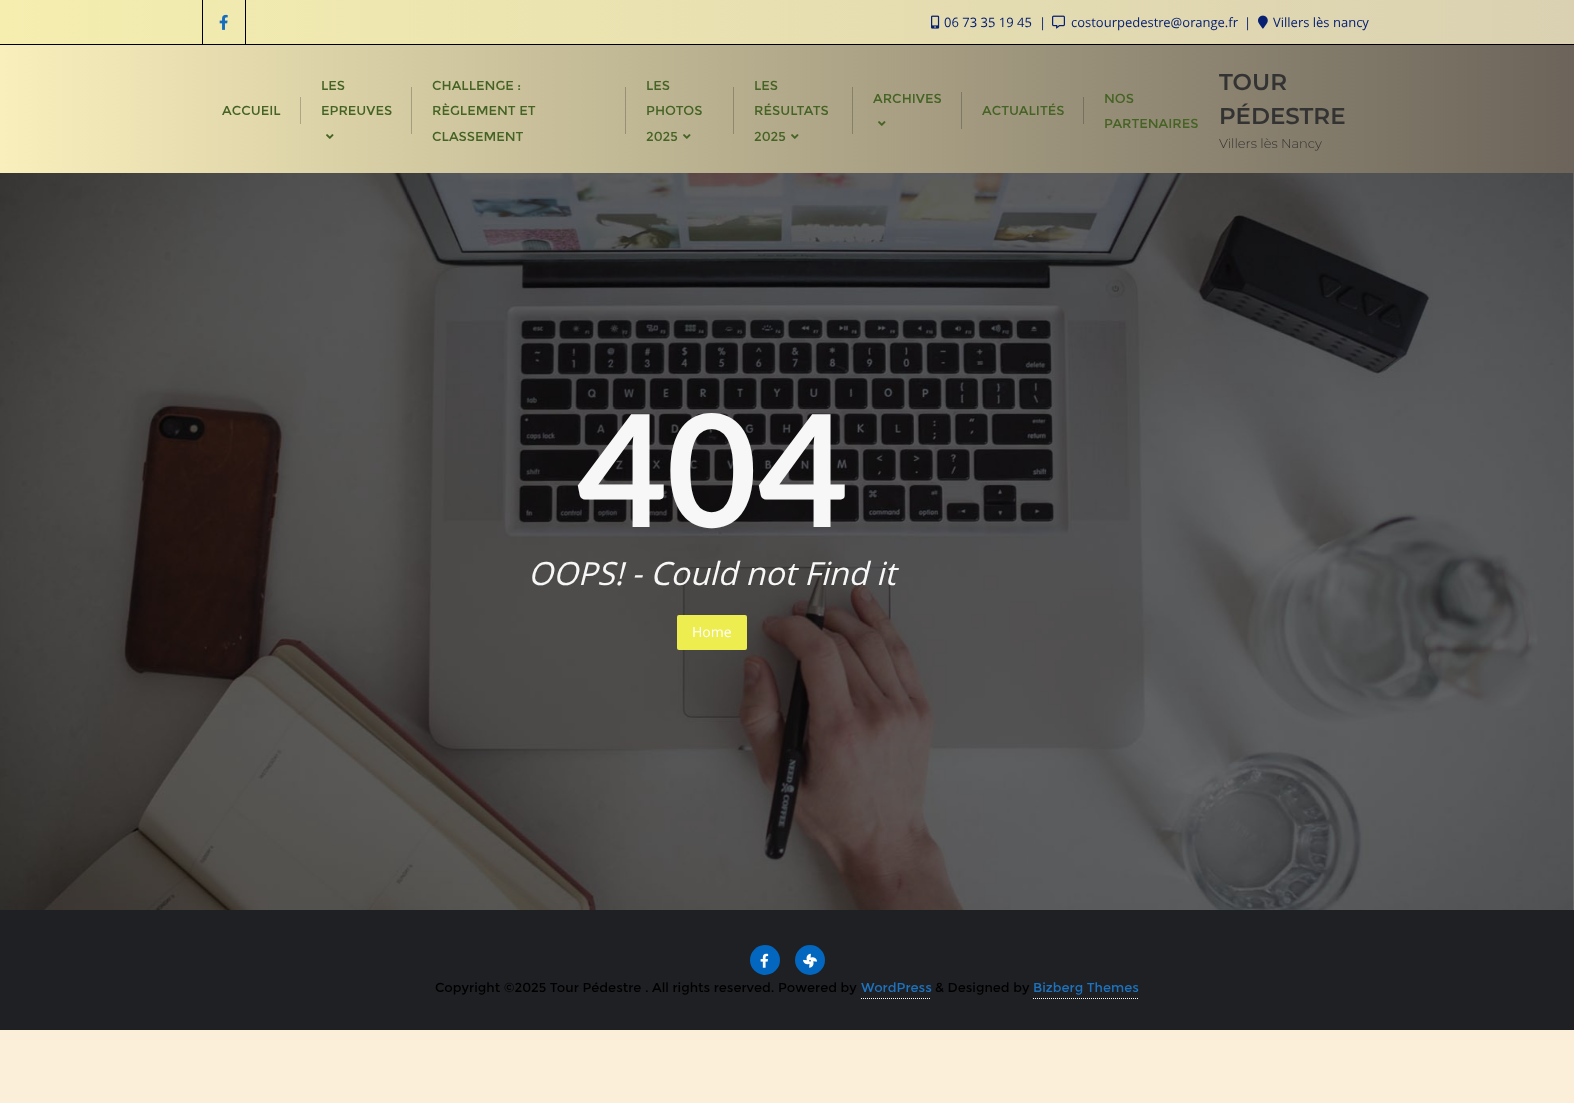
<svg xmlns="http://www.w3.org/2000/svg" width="1574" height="1103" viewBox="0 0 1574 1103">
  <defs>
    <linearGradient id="g1" gradientUnits="userSpaceOnUse" x1="0" y1="22" x2="1574" y2="22"><stop offset="0" stop-color="rgb(245,238,175)"/><stop offset="1" stop-color="rgb(218,209,178)"/></linearGradient>
    <linearGradient id="g2" gradientUnits="userSpaceOnUse" x1="0" y1="109" x2="1574" y2="109"><stop offset="0" stop-color="rgb(249,239,188)"/><stop offset="1" stop-color="rgb(108,100,90)"/></linearGradient>
  </defs>
  <rect width="100%" height="100%" fill="rgb(251,239,217)"/>
  <rect x="0" y="0" width="1574" height="44" fill="url(#g1)"/>
  <rect x="0" y="44" width="1574" height="1" fill="rgb(0,0,0)"/>
  <rect x="245" y="0" width="1" height="44" fill="rgb(0,0,0)"/>
  <rect x="202" y="0" width="1" height="44" fill="rgb(0,0,0)"/>
  <image x="219" y="14" width="9" height="16" href="pic1.png"/>
  <image x="931" y="15" width="9" height="14" href="pic2.png"/>
  <g font-family="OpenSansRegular" font-size="13" fill="rgb(7,32,114)">
    <text x="944" y="27">06 73 35 19 45</text>
    <text x="1039" y="27">|</text>
  </g>
  <image x="1052" y="15" width="13" height="14" href="pic3.png"/>
  <g font-family="OpenSansRegular" font-size="13" fill="rgb(7,32,114)">
    <text x="1071" y="27">costourpedestre@orange.fr</text>
    <text x="1244" y="27">|</text>
  </g>
  <image x="1258" y="15" width="10" height="14" href="pic4.png"/>
  <text x="1273" y="27" font-family="OpenSansRegular" font-size="13" fill="rgb(7,32,114)">Villers lès nancy</text>
  <rect x="0" y="45" width="1574" height="128" fill="url(#g2)"/>
  <text x="222" y="115" font-family="Montserrat" font-size="13" fill="rgb(69,99,36)">ACCUEIL</text>
  <rect x="300" y="97" width="1" height="27" fill="rgb(173,165,132)"/>
  <g font-family="Montserrat" font-size="13" fill="rgb(69,99,36)">
    <text>
      <tspan x="321" y="90">LES</tspan>
      <tspan x="321" y="115">EPREUVES</tspan>
    </text>
  </g>
  <image x="326" y="134" width="8" height="5" href="pic5.png"/>
  <rect x="411" y="87" width="1" height="47" fill="rgb(165,158,126)"/>
  <g font-family="Montserrat" font-size="13" fill="rgb(69,99,36)">
    <text>
      <tspan x="432" y="90">CHALLENGE :</tspan>
      <tspan x="432" y="115">RÈGLEMENT ET</tspan>
    </text>
  </g>
  <rect x="625" y="87" width="1" height="47" fill="rgb(151,144,116)"/>
  <g font-family="Montserrat" font-size="13" fill="rgb(69,99,36)">
    <text x="432" y="141">CLASSEMENT</text>
    <text>
      <tspan x="646" y="90">LES</tspan>
      <tspan x="646" y="115">PHOTOS</tspan>
    </text>
    <text x="646" y="141">2025</text>
  </g>
  <image x="683" y="134" width="8" height="5" href="pic6.png"/>
  <rect x="733" y="87" width="1" height="47" fill="rgb(143,136,111)"/>
  <g font-family="Montserrat" font-size="13" fill="rgb(69,99,36)">
    <text>
      <tspan x="754" y="90">LES</tspan>
      <tspan x="754" y="115">RÉSULTATS</tspan>
    </text>
    <text x="754" y="141">2025</text>
  </g>
  <image x="791" y="134" width="8" height="5" href="pic7.png"/>
  <rect x="852" y="87" width="1" height="47" fill="rgb(135,128,105)"/>
  <text x="873" y="103" font-family="Montserrat" font-size="13" fill="rgb(69,99,36)">ARCHIVES</text>
  <image x="878" y="121" width="8" height="5" href="pic8.png"/>
  <rect x="961" y="92" width="1" height="37" fill="rgb(127,120,100)"/>
  <text x="982" y="115" font-family="Montserrat" font-size="13" fill="rgb(69,99,36)">ACTUALITÉS</text>
  <rect x="1083" y="97" width="1" height="27" fill="rgb(119,112,94)"/>
  <g font-family="Montserrat" font-size="13" fill="rgb(69,99,36)">
    <text>
      <tspan x="1104" y="103">NOS</tspan>
      <tspan x="1104" y="128">PARTENAIRES</tspan>
    </text>
  </g>
  <g font-family="Montserrat" font-size="23" font-weight="600" fill="rgb(51,51,51)">
    <text>
      <tspan x="1219" y="90">TOUR</tspan>
      <tspan x="1219" y="124">PÉDESTRE</tspan>
    </text>
  </g>
  <text x="1219" y="148" font-family="Montserrat" font-size="13" font-weight="300" fill="rgb(51,51,51)">Villers lès Nancy</text>
  <image x="0" y="173" width="1574" height="737" href="pic9.png"/>
  <text x="576" y="527" font-family="Lato" font-size="156" font-weight="bold" fill="rgb(247,247,247)">404</text>
  <text x="528" y="585" font-family="OpenSansRegular" font-size="32" font-style="italic" fill="rgb(247,247,247)">OOPS! - Could not Find it</text>
  <rect x="677" y="615" width="70" height="35" rx="2" fill="rgb(237,237,80)"/>
  <text x="692" y="637" font-family="OpenSansRegular" font-size="14" fill="rgb(255,255,255)">Home</text>
  <rect x="0" y="910" width="1574" height="120" fill="rgb(31,32,36)"/>
  <circle cx="765" cy="960" r="15" fill="rgb(3,103,191)"/>
  <image x="760" y="953" width="9" height="15" href="pic10.png"/>
  <circle cx="810" cy="960" r="15" fill="rgb(3,103,191)"/>
  <image x="803" y="953" width="14" height="15" href="pic11.png"/>
  <text x="435" y="992" font-family="Montserrat" font-size="13" fill="rgb(0,0,0)">Copyright ©2025 Tour Pédestre . All rights reserved. Powered by</text>
  <path d="M861 998.5H931" fill="none" stroke="rgb(255,255,255)" stroke-dasharray="1 1"/>
  <text x="861" y="992" font-family="Montserrat" font-size="13" fill="rgb(30,115,190)">WordPress</text>
  <text x="935" y="992" font-family="Montserrat" font-size="13" fill="rgb(0,0,0)">&amp; Designed by</text>
  <path d="M1033 998.5H1139" fill="none" stroke="rgb(255,255,255)" stroke-dasharray="1 1"/>
  <text x="1033" y="992" font-family="Montserrat" font-size="13" fill="rgb(30,115,190)">Bizberg Themes</text>
</svg>
